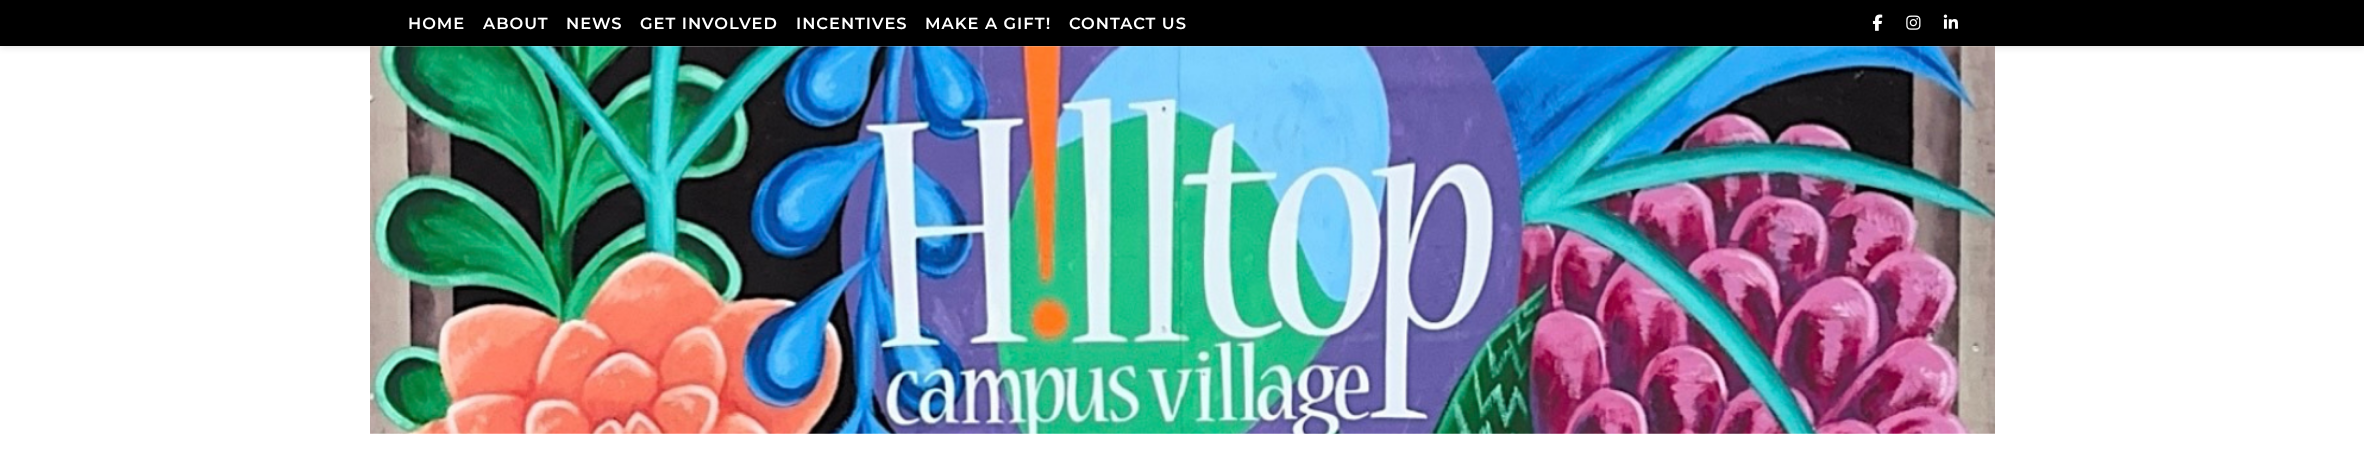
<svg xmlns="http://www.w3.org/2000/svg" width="2364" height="449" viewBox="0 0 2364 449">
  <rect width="100%" height="100%" fill="rgb(255,255,255)"/>
  <rect x="0" y="1" width="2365" height="47" fill="rgba(0,0,0,0.1)" filter="blur(3px)"/>
  <rect x="0" y="0" width="2364" height="46" fill="rgb(0,0,0)"/>
  <g font-family="Montserrat" font-size="16.25" font-weight="600" letter-spacing="1" fill="rgb(255,255,255)">
    <text x="408" y="29">HOME</text>
    <text x="483" y="29">ABOUT</text>
    <text x="566" y="29">NEWS</text>
    <text x="640" y="29">GET INVOLVED</text>
    <text x="796" y="29">INCENTIVES</text>
    <text x="925" y="29">MAKE A GIFT!</text>
    <text x="1069" y="29">CONTACT US</text>
  </g>
  <image x="1872" y="14" width="11" height="17" href="pic1.png"/>
  <image x="1906" y="15" width="15" height="15" href="pic2.png"/>
  <image x="1943" y="14" width="15" height="15" href="pic3.png"/>
  <image x="370" y="46" width="1625" height="388" href="pic4.png"/>
</svg>
